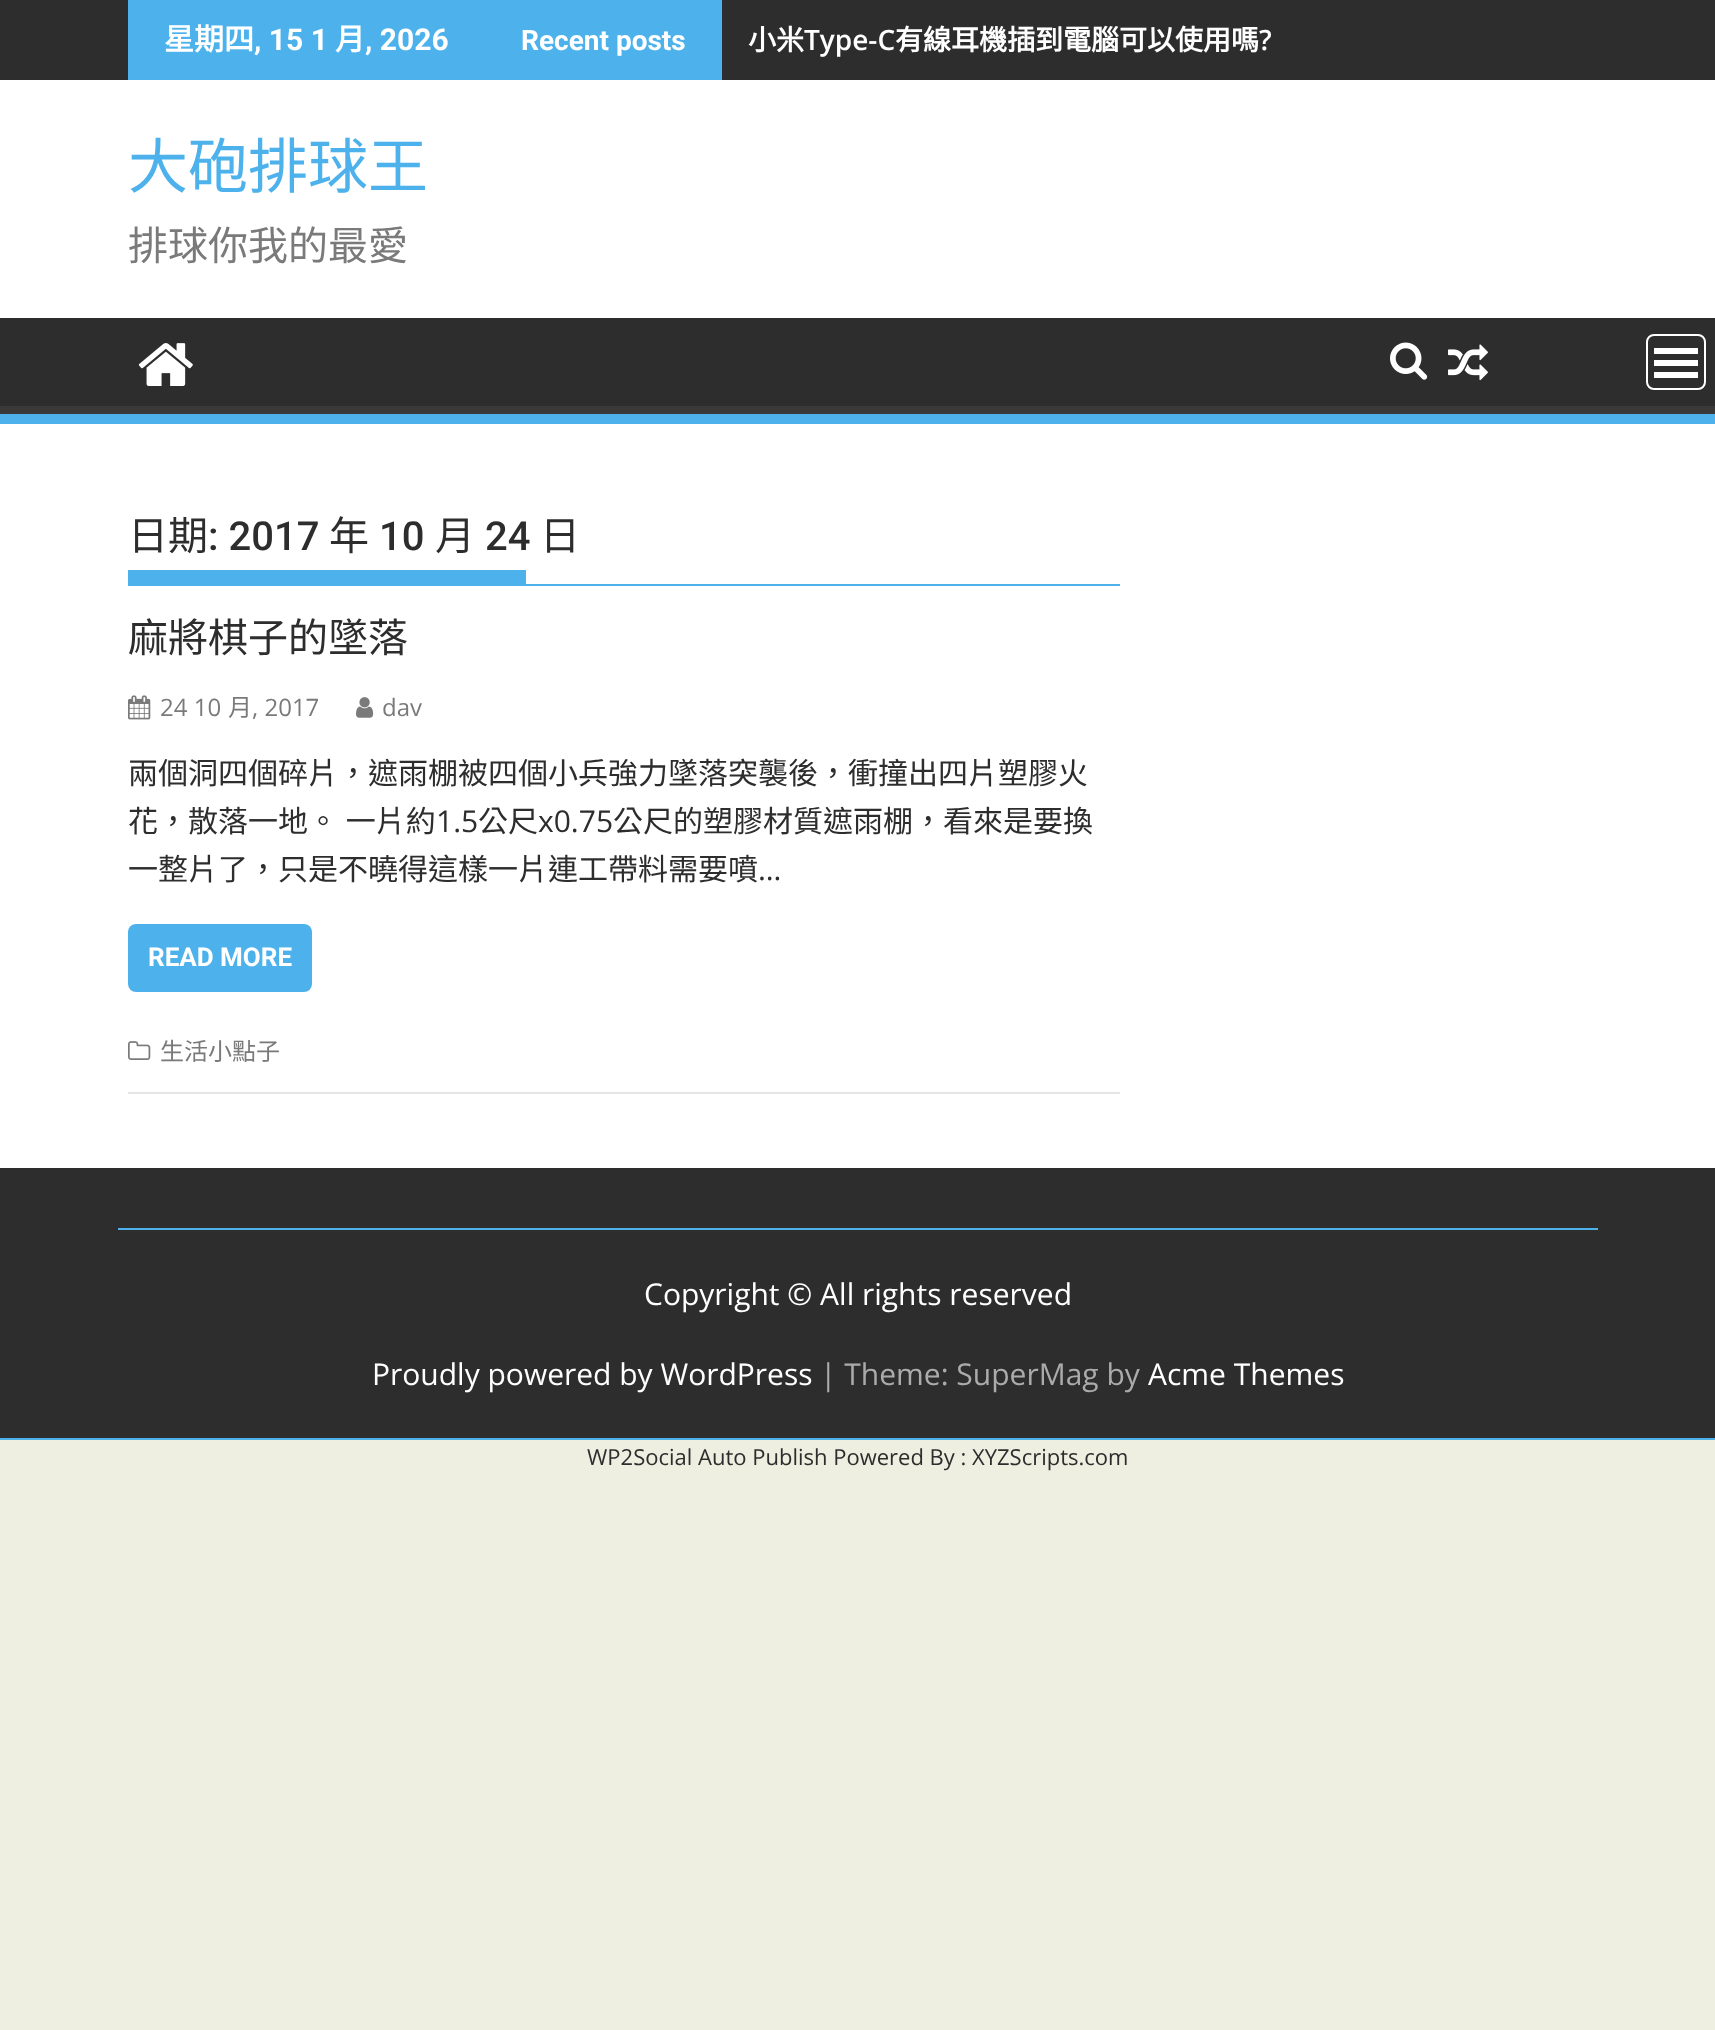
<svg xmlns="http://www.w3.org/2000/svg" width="1715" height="2030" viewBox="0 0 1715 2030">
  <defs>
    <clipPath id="clip1"><rect x="0" y="318" width="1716" height="96"/></clipPath>
  </defs>
  <rect width="100%" height="100%" fill="rgb(238,238,225)"/>
  <rect x="0" y="80" width="1715" height="1088" fill="rgb(255,255,255)"/>
  <rect x="0" y="0" width="1715" height="80" fill="rgb(45,45,45)"/>
  <rect x="128" y="0" width="594" height="80" fill="rgb(77,178,236)"/>
  <text x="164" y="50" font-family="Noto Sans CJK TC" font-size="30" font-weight="bold" fill="rgb(255,255,255)">星期四</text>
  <text x="254" y="50" font-family="Roboto" font-size="30" font-weight="bold" fill="rgb(255,255,255)">, 15 1</text>
  <text x="335" y="50" font-family="Noto Sans CJK TC" font-size="30" font-weight="bold" fill="rgb(255,255,255)">月</text>
  <text x="365" y="50" font-family="Roboto" font-size="30" font-weight="bold" fill="rgb(255,255,255)">, 2026</text>
  <text x="521" y="50" font-family="Roboto" font-size="28" font-weight="bold" fill="rgb(255,255,255)">Recent posts</text>
  <text x="748" y="50" font-family="Noto Sans CJK TC" font-size="28" font-weight="bold" fill="rgb(255,255,255)">小米</text>
  <text x="804" y="50" font-family="Open Sans" font-size="28" font-weight="600" fill="rgb(255,255,255)">Type-C</text>
  <text x="895" y="50" font-family="Noto Sans CJK TC" font-size="28" font-weight="bold" fill="rgb(255,255,255)">有線耳機插到電腦可以使用嗎</text>
  <text x="1259" y="50" font-family="Open Sans" font-size="28" font-weight="600" fill="rgb(255,255,255)">?</text>
  <text x="128" y="188" font-family="Noto Sans CJK TC" font-size="60" fill="rgb(77,178,236)">大砲排球王</text>
  <text x="128" y="260" font-family="Noto Sans CJK TC" font-size="40" fill="rgb(122,122,122)">排球你我的最愛</text>
  <rect x="0" y="318" width="1715" height="88" fill="rgb(45,45,45)"/>
  <g clip-path="url(#clip1)">
    <path d="M-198 120H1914V612H-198ZM-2 306H1714C1715 306 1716 307 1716 308V404C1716 405 1715 406 1714 406H-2C-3 406-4 405-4 404V308C-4 307-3 306-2 306Z" fill="rgb(57,57,57)" fill-rule="evenodd"/>
  </g>
  <rect x="0" y="414" width="1715" height="10" fill="rgb(77,178,236)"/>
  <image x="138" y="343" width="55" height="43" href="pic1.png"/>
  <image x="1390" y="342" width="38" height="38" href="pic2.png"/>
  <image x="1448" y="344" width="40" height="37" href="pic3.png"/>
  <rect x="1647" y="335" width="58" height="54" rx="7" fill="none" stroke="rgb(255,255,255)" stroke-width="2"/>
  <rect x="1654" y="372" width="44" height="6" fill="rgb(255,255,255)"/>
  <rect x="1654" y="360" width="44" height="6" fill="rgb(255,255,255)"/>
  <rect x="1654" y="348" width="44" height="6" fill="rgb(255,255,255)"/>
  <rect x="128" y="584" width="992" height="2" fill="rgb(77,178,236)"/>
  <text x="128" y="550" font-family="Noto Sans CJK TC" font-size="40" fill="rgb(45,45,45)">日期</text>
  <text x="208" y="550" font-family="Roboto" font-size="40" font-weight="500" fill="rgb(45,45,45)">: 2017</text>
  <text x="329" y="550" font-family="Noto Sans CJK TC" font-size="40" fill="rgb(45,45,45)">年</text>
  <text x="379" y="550" font-family="Roboto" font-size="40" font-weight="500" fill="rgb(45,45,45)">10</text>
  <text x="435" y="550" font-family="Noto Sans CJK TC" font-size="40" fill="rgb(45,45,45)">月</text>
  <text x="485" y="550" font-family="Roboto" font-size="40" font-weight="500" fill="rgb(45,45,45)">24</text>
  <text x="540" y="550" font-family="Noto Sans CJK TC" font-size="40" fill="rgb(45,45,45)">日</text>
  <rect x="128" y="570" width="398" height="14" fill="rgb(77,178,236)"/>
  <rect x="128" y="1092" width="992" height="2" fill="rgb(229,229,229)"/>
  <text x="128" y="652" font-family="Noto Sans CJK TC" font-size="40" fill="rgb(45,45,45)">麻將棋子的墜落</text>
  <image x="128" y="695" width="23" height="25" href="pic4.png"/>
  <text x="160" y="716" font-family="Open Sans" font-size="24" fill="rgb(122,122,122)">24 10</text>
  <text x="228" y="716" font-family="Noto Sans CJK TC" font-size="24" fill="rgb(122,122,122)">月</text>
  <text x="252" y="716" font-family="Open Sans" font-size="24" fill="rgb(122,122,122)">, 2017</text>
  <image x="356" y="697" width="18" height="21" href="pic5.png"/>
  <text x="382" y="716" font-family="Open Sans" font-size="24" fill="rgb(122,122,122)">dav</text>
  <g font-family="Noto Sans CJK TC" font-size="30" fill="rgb(45,45,45)">
    <text>
      <tspan x="128" y="784">兩個洞四個碎片，遮雨棚被四個小兵強力墜落突襲後，衝撞出四片塑膠火</tspan>
      <tspan x="128" y="832" word-spacing="1">花，散落一地。 一片約</tspan>
    </text>
  </g>
  <text x="436" y="832" font-family="Open Sans" font-size="30" fill="rgb(45,45,45)">1.5</text>
  <text x="478" y="832" font-family="Noto Sans CJK TC" font-size="30" fill="rgb(45,45,45)">公尺</text>
  <text x="538" y="832" font-family="Open Sans" font-size="30" fill="rgb(45,45,45)">x0.75</text>
  <g font-family="Noto Sans CJK TC" font-size="30" fill="rgb(45,45,45)">
    <text x="613" y="832">公尺的塑膠材質遮雨棚，看來是要換</text>
    <text x="128" y="880">一整片了，只是不曉得這樣一片連工帶料需要噴</text>
  </g>
  <text x="758" y="880" font-family="Open Sans" font-size="30" fill="rgb(45,45,45)">…</text>
  <rect x="128" y="924" width="184" height="68" rx="8" fill="rgb(77,178,236)"/>
  <text x="148" y="966" font-family="Roboto" font-size="26" font-weight="bold" fill="rgb(255,255,255)">READ MORE</text>
  <image x="128" y="1041" width="23" height="19" href="pic6.png"/>
  <text x="160" y="1060" font-family="Noto Sans CJK TC" font-size="24" fill="rgb(122,122,122)">生活小點子</text>
  <rect x="0" y="1168" width="1715" height="270" fill="rgb(45,45,45)"/>
  <rect x="0" y="1438" width="1715" height="2" fill="rgb(77,178,236)"/>
  <rect x="118" y="1228" width="1480" height="2" fill="rgb(77,178,236)"/>
  <g font-family="Open Sans" font-size="30" fill="rgb(255,255,255)">
    <text x="644" y="1305">Copyright © All rights reserved</text>
    <text x="372" y="1385">Proudly powered by WordPress</text>
  </g>
  <text x="820" y="1385" font-family="Open Sans" font-size="30" fill="rgb(171,171,171)">| Theme: SuperMag by</text>
  <text x="1148" y="1385" font-family="Open Sans" font-size="30" fill="rgb(255,255,255)">Acme Themes</text>
  <text x="587" y="1465" font-family="Open Sans" font-size="22" fill="rgb(45,45,45)">WP2Social Auto Publish Powered By : XYZScripts.com</text>
</svg>
